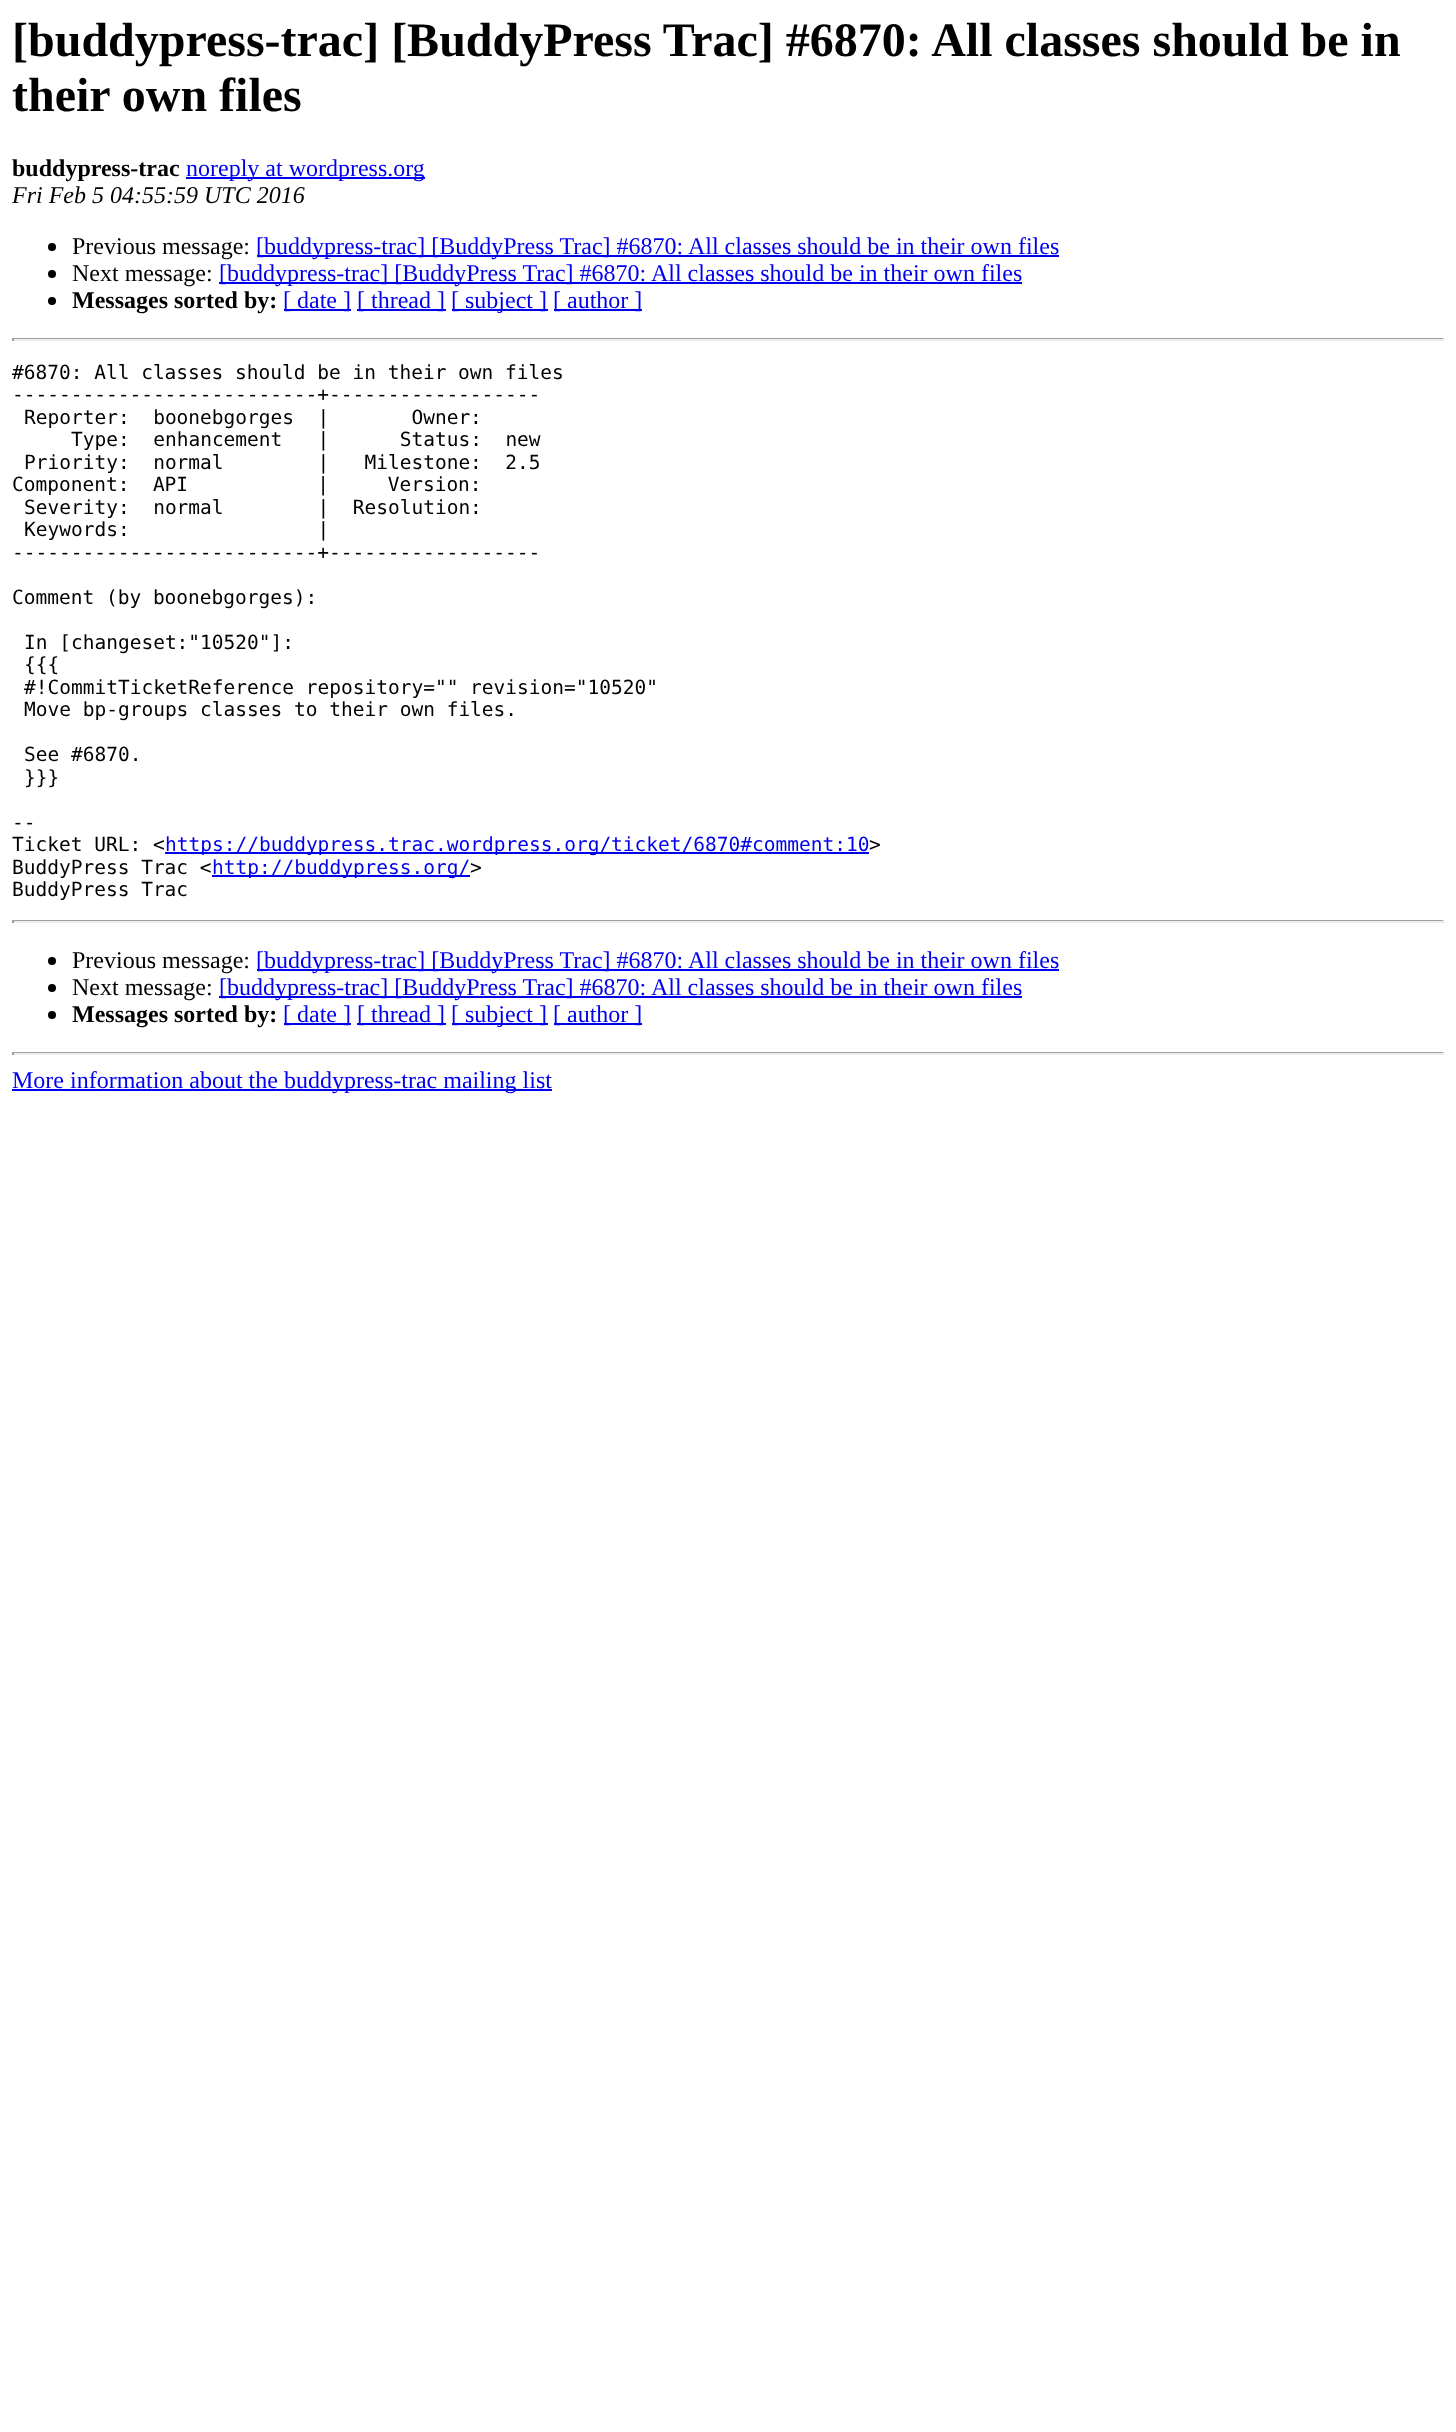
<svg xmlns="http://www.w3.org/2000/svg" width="1456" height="2432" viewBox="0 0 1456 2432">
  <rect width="100%" height="100%" fill="rgb(255,255,255)"/>
  <g font-family="Liberation Serif" font-size="48" font-weight="bold" fill="rgb(0,0,0)">
    <text>
      <tspan x="12" y="56">[buddypress-trac] [BuddyPress Trac] #6870: All classes should be in</tspan>
      <tspan x="12" y="111">their own files</tspan>
    </text>
  </g>
  <text x="12" y="176" font-family="Liberation Serif" font-size="24" font-weight="bold" fill="rgb(0,0,0)">buddypress-trac</text>
  <rect x="186" y="177" width="239" height="2" fill="rgb(0,0,238)"/>
  <text x="186" y="176" font-family="Liberation Serif" font-size="24" fill="rgb(0,0,238)">noreply at wordpress.org</text>
  <text x="12" y="203" font-family="Liberation Serif" font-size="24" font-style="italic" fill="rgb(0,0,0)">Fri Feb 5 04:55:59 UTC 2016</text>
  <circle cx="52" cy="247" r="4" fill="rgb(0,0,0)"/>
  <text x="72" y="254" font-family="Liberation Serif" font-size="24" fill="rgb(0,0,0)">Previous message:</text>
  <rect x="257" y="255" width="802" height="2" fill="rgb(0,0,238)"/>
  <text x="256" y="254" font-family="Liberation Serif" font-size="24" fill="rgb(0,0,238)">[buddypress-trac] [BuddyPress Trac] #6870: All classes should be in their own files</text>
  <circle cx="52" cy="274" r="4" fill="rgb(0,0,0)"/>
  <text x="72" y="281" font-family="Liberation Serif" font-size="24" fill="rgb(0,0,0)">Next message:</text>
  <rect x="219" y="282" width="803" height="2" fill="rgb(0,0,238)"/>
  <text x="219" y="281" font-family="Liberation Serif" font-size="24" fill="rgb(0,0,238)">[buddypress-trac] [BuddyPress Trac] #6870: All classes should be in their own files</text>
  <circle cx="52" cy="301" r="4" fill="rgb(0,0,0)"/>
  <text x="72" y="308" font-family="Liberation Serif" font-size="24" font-weight="bold" fill="rgb(0,0,0)">Messages sorted by:</text>
  <rect x="284" y="309" width="67" height="2" fill="rgb(0,0,238)"/>
  <text x="283" y="308" font-family="Liberation Serif" font-size="24" fill="rgb(0,0,238)">[ date ]</text>
  <rect x="357" y="309" width="89" height="2" fill="rgb(0,0,238)"/>
  <text x="357" y="308" font-family="Liberation Serif" font-size="24" fill="rgb(0,0,238)">[ thread ]</text>
  <rect x="452" y="309" width="96" height="2" fill="rgb(0,0,238)"/>
  <text x="451" y="308" font-family="Liberation Serif" font-size="24" fill="rgb(0,0,238)">[ subject ]</text>
  <rect x="554" y="309" width="88" height="2" fill="rgb(0,0,238)"/>
  <text x="553" y="308" font-family="Liberation Serif" font-size="24" fill="rgb(0,0,238)">[ author ]</text>
  <rect x="12" y="338" width="1433" height="1" fill="rgb(159,159,159)"/>
  <rect x="1443" y="338" width="2" height="3" fill="rgb(238,238,238)"/>
  <rect x="12" y="339" width="1433" height="2" fill="rgb(238,238,238)"/>
  <rect x="12" y="338" width="2" height="3" fill="rgb(159,159,159)"/>
  <g font-family="DejaVu Sans Mono" font-size="19.5" fill="rgb(0,0,0)">
    <text>
      <tspan x="12" y="379">#6870: All classes should be in their own files</tspan>
      <tspan x="12" y="401">--------------------------+------------------</tspan>
    </text>
    <text x="24" y="424" xml:space="preserve">Reporter:  boonebgorges  |       Owner:</text>
    <text x="71" y="446" xml:space="preserve">Type:  enhancement   |      Status:  new</text>
    <text x="24" y="469" xml:space="preserve">Priority:  normal        |   Milestone:  2.5</text>
    <text x="12" y="491" xml:space="preserve">Component:  API           |     Version:</text>
    <text xml:space="preserve"><tspan x="24" y="514">Severity:  normal        |  Resolution:</tspan><tspan x="24" y="536">Keywords:                |</tspan></text>
    <text x="12" y="559">--------------------------+------------------</text>
    <text x="12" y="604">Comment (by boonebgorges):</text>
    <text>
      <tspan x="24" y="649">In [changeset:"10520"]:</tspan>
      <tspan x="24" y="671">{{{</tspan>
      <tspan x="24" y="694">#!CommitTicketReference repository="" revision="10520"</tspan>
      <tspan x="24" y="716">Move bp-groups classes to their own files.</tspan>
    </text>
    <text>
      <tspan x="24" y="761">See #6870.</tspan>
      <tspan x="24" y="784">}}}</tspan>
    </text>
    <text>
      <tspan x="12" y="829">--</tspan>
      <tspan x="12" y="851">Ticket URL: &lt;</tspan>
    </text>
  </g>
  <rect x="165" y="852" width="704" height="2" fill="rgb(0,0,238)"/>
  <text x="165" y="851" font-family="DejaVu Sans Mono" font-size="19.5" fill="rgb(0,0,238)">https://buddypress.trac.wordpress.org/ticket/6870#comment:10</text>
  <g font-family="DejaVu Sans Mono" font-size="19.5" fill="rgb(0,0,0)">
    <text x="869" y="851">&gt;</text>
    <text x="12" y="874">BuddyPress Trac &lt;</text>
  </g>
  <rect x="212" y="875" width="258" height="2" fill="rgb(0,0,238)"/>
  <text x="212" y="874" font-family="DejaVu Sans Mono" font-size="19.5" fill="rgb(0,0,238)">http://buddypress.org/</text>
  <g font-family="DejaVu Sans Mono" font-size="19.5" fill="rgb(0,0,0)">
    <text x="470" y="874">&gt;</text>
    <text x="12" y="896">BuddyPress Trac</text>
  </g>
  <rect x="12" y="920" width="1433" height="1" fill="rgb(159,159,159)"/>
  <rect x="1443" y="920" width="2" height="3" fill="rgb(238,238,238)"/>
  <rect x="12" y="921" width="1433" height="2" fill="rgb(238,238,238)"/>
  <rect x="12" y="920" width="2" height="3" fill="rgb(159,159,159)"/>
  <circle cx="52" cy="961" r="4" fill="rgb(0,0,0)"/>
  <text x="72" y="968" font-family="Liberation Serif" font-size="24" fill="rgb(0,0,0)">Previous message:</text>
  <rect x="257" y="969" width="802" height="2" fill="rgb(0,0,238)"/>
  <text x="256" y="968" font-family="Liberation Serif" font-size="24" fill="rgb(0,0,238)">[buddypress-trac] [BuddyPress Trac] #6870: All classes should be in their own files</text>
  <circle cx="52" cy="988" r="4" fill="rgb(0,0,0)"/>
  <text x="72" y="995" font-family="Liberation Serif" font-size="24" fill="rgb(0,0,0)">Next message:</text>
  <rect x="219" y="996" width="803" height="2" fill="rgb(0,0,238)"/>
  <text x="219" y="995" font-family="Liberation Serif" font-size="24" fill="rgb(0,0,238)">[buddypress-trac] [BuddyPress Trac] #6870: All classes should be in their own files</text>
  <circle cx="52" cy="1015" r="4" fill="rgb(0,0,0)"/>
  <text x="72" y="1022" font-family="Liberation Serif" font-size="24" font-weight="bold" fill="rgb(0,0,0)">Messages sorted by:</text>
  <rect x="284" y="1023" width="67" height="2" fill="rgb(0,0,238)"/>
  <text x="283" y="1022" font-family="Liberation Serif" font-size="24" fill="rgb(0,0,238)">[ date ]</text>
  <rect x="357" y="1023" width="89" height="2" fill="rgb(0,0,238)"/>
  <text x="357" y="1022" font-family="Liberation Serif" font-size="24" fill="rgb(0,0,238)">[ thread ]</text>
  <rect x="452" y="1023" width="96" height="2" fill="rgb(0,0,238)"/>
  <text x="451" y="1022" font-family="Liberation Serif" font-size="24" fill="rgb(0,0,238)">[ subject ]</text>
  <rect x="554" y="1023" width="88" height="2" fill="rgb(0,0,238)"/>
  <text x="553" y="1022" font-family="Liberation Serif" font-size="24" fill="rgb(0,0,238)">[ author ]</text>
  <rect x="12" y="1052" width="1433" height="1" fill="rgb(159,159,159)"/>
  <rect x="1443" y="1052" width="2" height="3" fill="rgb(238,238,238)"/>
  <rect x="12" y="1053" width="1433" height="2" fill="rgb(238,238,238)"/>
  <rect x="12" y="1052" width="2" height="3" fill="rgb(159,159,159)"/>
  <rect x="12" y="1089" width="540" height="2" fill="rgb(0,0,238)"/>
  <text x="12" y="1088" font-family="Liberation Serif" font-size="24" fill="rgb(0,0,238)">More information about the buddypress-trac mailing list</text>
</svg>
